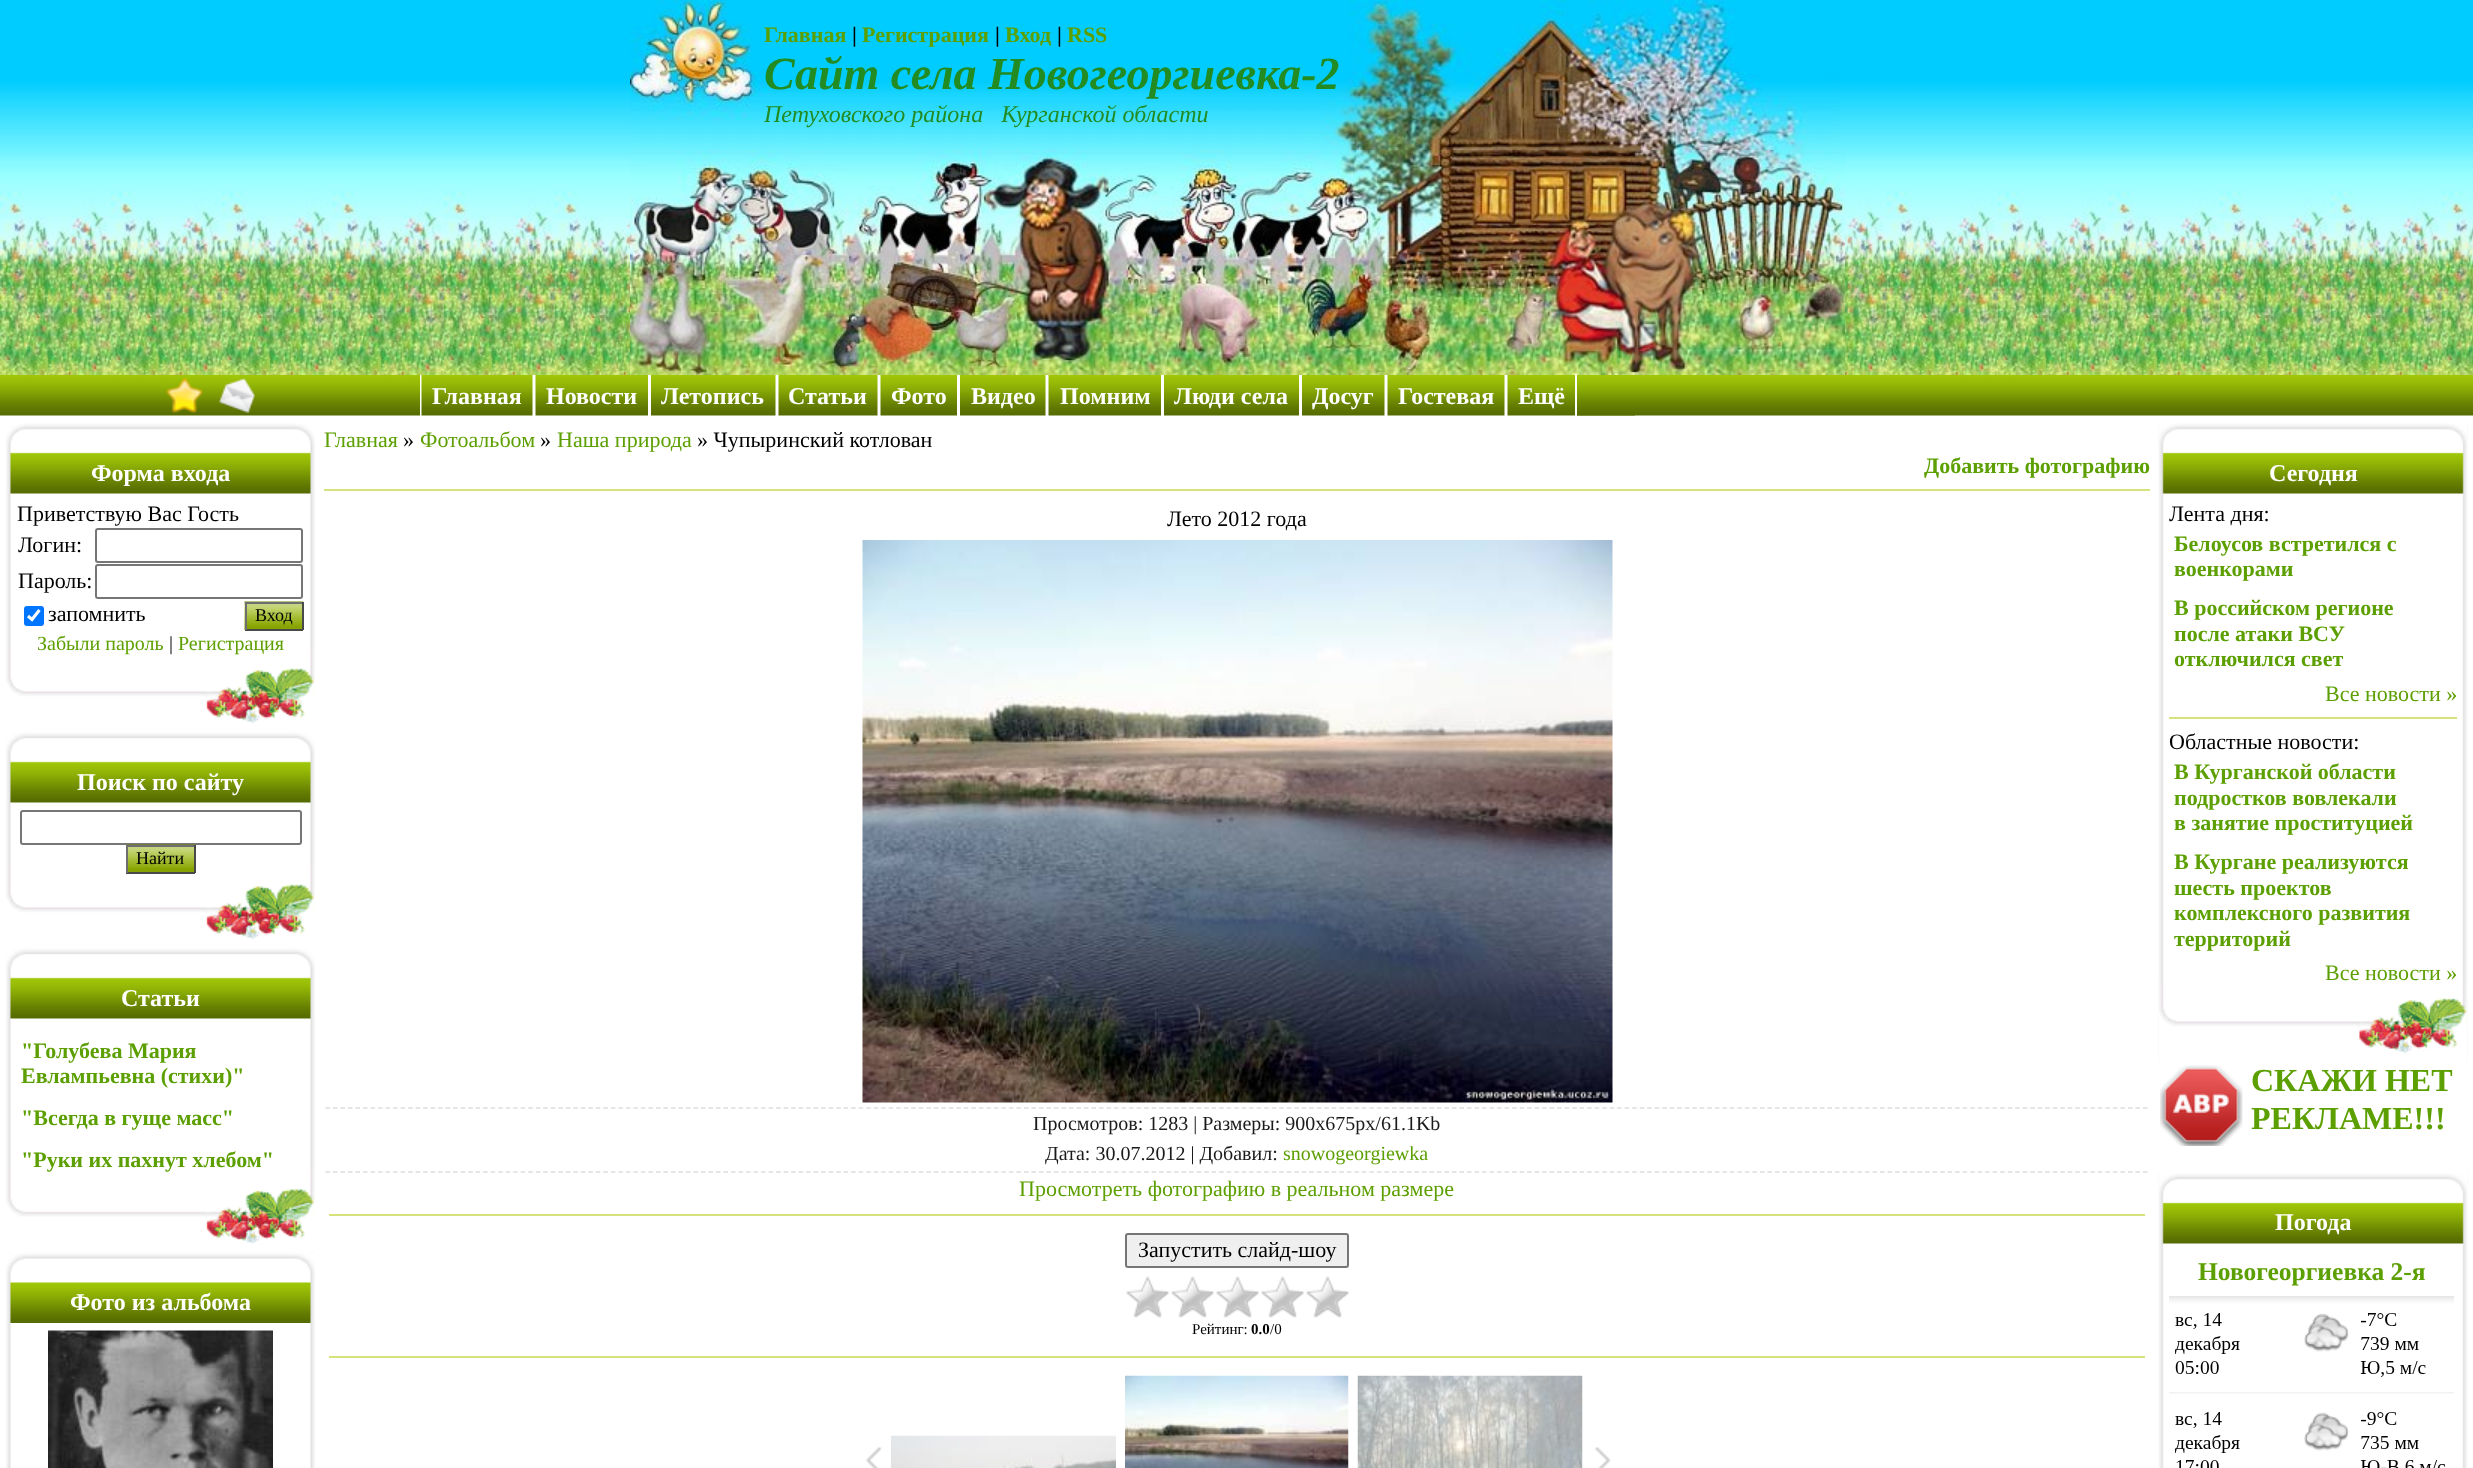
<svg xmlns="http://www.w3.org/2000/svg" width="2473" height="1468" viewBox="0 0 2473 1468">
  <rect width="100%" height="100%" fill="rgb(255,255,255)"/>
  <image x="0" y="0" width="2473" height="375" href="pic1.png"/>
  <image x="630" y="0" width="1210" height="150" href="pic2.png"/>
  <text x="764" y="42" font-family="Liberation Serif" font-size="22" font-weight="bold" fill="rgb(92,159,0)">Главная</text>
  <text x="852" y="42" font-family="Liberation Serif" font-size="22" font-weight="bold" fill="rgb(0,0,0)">|</text>
  <text x="862" y="42" font-family="Liberation Serif" font-size="22" font-weight="bold" fill="rgb(92,159,0)">Регистрация</text>
  <text x="995" y="42" font-family="Liberation Serif" font-size="22" font-weight="bold" fill="rgb(0,0,0)">|</text>
  <text x="1005" y="42" font-family="Liberation Serif" font-size="22" font-weight="bold" fill="rgb(92,159,0)">Вход</text>
  <text x="1057" y="42" font-family="Liberation Serif" font-size="22" font-weight="bold" fill="rgb(0,0,0)">|</text>
  <text x="1067" y="42" font-family="Liberation Serif" font-size="22" font-weight="bold" fill="rgb(92,159,0)">RSS</text>
  <text x="764" y="89" font-family="Liberation Serif" font-size="46" font-weight="bold" font-style="italic" fill="rgb(34,139,34)">Сайт села Новогеоргиевка-2</text>
  <text x="764" y="122" font-family="Liberation Serif" font-size="24" font-style="italic" fill="rgb(34,139,34)" xml:space="preserve">Петуховского района   Курганской области</text>
  <image x="630" y="150" width="1215" height="225" href="pic3.png"/>
  <image x="0" y="375" width="420" height="41" href="pic4.png"/>
  <image x="166" y="378" width="37" height="36" href="pic5.png"/>
  <image x="219" y="378" width="36" height="35" href="pic6.png"/>
  <image x="1577" y="375" width="896" height="41" href="pic7.png"/>
  <rect x="1577" y="415" width="58" height="1" fill="rgb(128,145,63)"/>
  <image x="421" y="375" width="112" height="41" href="pic8.png"/>
  <text x="432" y="404" font-family="Liberation Serif" font-size="24" font-weight="bold" fill="rgb(255,255,255)">Главная</text>
  <image x="535" y="375" width="113" height="41" href="pic9.png"/>
  <text x="546" y="404" font-family="Liberation Serif" font-size="24" font-weight="bold" fill="rgb(255,255,255)">Новости</text>
  <image x="651" y="375" width="125" height="41" href="pic10.png"/>
  <text x="661" y="404" font-family="Liberation Serif" font-size="24" font-weight="bold" fill="rgb(255,255,255)">Летопись</text>
  <image x="778" y="375" width="100" height="41" href="pic11.png"/>
  <text x="788" y="404" font-family="Liberation Serif" font-size="24" font-weight="bold" fill="rgb(255,255,255)">Статьи</text>
  <image x="880" y="375" width="77" height="41" href="pic12.png"/>
  <text x="891" y="404" font-family="Liberation Serif" font-size="24" font-weight="bold" fill="rgb(255,255,255)">Фото</text>
  <image x="960" y="375" width="86" height="41" href="pic13.png"/>
  <text x="971" y="404" font-family="Liberation Serif" font-size="24" font-weight="bold" fill="rgb(255,255,255)">Видео</text>
  <image x="1048" y="375" width="113" height="41" href="pic9.png"/>
  <text x="1060" y="404" font-family="Liberation Serif" font-size="24" font-weight="bold" fill="rgb(255,255,255)">Помним</text>
  <image x="1164" y="375" width="135" height="41" href="pic14.png"/>
  <text x="1174" y="404" font-family="Liberation Serif" font-size="24" font-weight="bold" fill="rgb(255,255,255)">Люди села</text>
  <image x="1302" y="375" width="83" height="41" href="pic15.png"/>
  <text x="1312" y="404" font-family="Liberation Serif" font-size="24" font-weight="bold" fill="rgb(255,255,255)">Досуг</text>
  <image x="1387" y="375" width="118" height="41" href="pic16.png"/>
  <text x="1398" y="404" font-family="Liberation Serif" font-size="24" font-weight="bold" fill="rgb(255,255,255)">Гостевая</text>
  <image x="1507" y="375" width="68" height="41" href="pic17.png"/>
  <text x="1518" y="404" font-family="Liberation Serif" font-size="24" font-weight="bold" fill="rgb(255,255,255)">Ещё</text>
  <image x="6" y="493" width="309" height="157" href="pic18.png"/>
  <image x="6" y="423" width="309" height="71" href="pic19.png"/>
  <text x="91" y="481" font-family="Liberation Serif" font-size="24" font-weight="bold" fill="rgb(255,255,255)">Форма входа</text>
  <image x="6" y="650" width="309" height="82" href="pic20.png"/>
  <g font-family="Liberation Serif" font-size="22" fill="rgb(0,0,0)">
    <text x="17" y="521">Приветствую Вас Гость</text>
    <text x="18" y="552">Логин:</text>
  </g>
  <rect x="96" y="529" width="206" height="33" rx="2" fill="none" stroke="rgb(118,118,118)" stroke-width="2"/>
  <text x="18" y="588" font-family="Liberation Serif" font-size="22" fill="rgb(0,0,0)">Пароль:</text>
  <rect x="96" y="565" width="206" height="33" rx="2" fill="none" stroke="rgb(118,118,118)" stroke-width="2"/>
  <rect x="24" y="606" width="20" height="20" rx="3" fill="rgb(0,117,255)"/>
  <path d="M28 616L32 619.5L39.5 610" fill="none" stroke="rgb(255,255,255)" stroke-width="3.1"/>
  <text x="48" y="621" font-family="Liberation Serif" font-size="22" fill="rgb(0,0,0)">запомнить</text>
  <image x="244" y="601" width="59" height="29" href="pic21.png"/>
  <rect x="245" y="602" width="58" height="2" fill="rgb(110,110,110)"/>
  <rect x="302" y="602" width="2" height="28" fill="rgb(73,73,73)"/>
  <rect x="245" y="629" width="58" height="2" fill="rgb(73,73,73)"/>
  <rect x="245" y="602" width="2" height="28" fill="rgb(110,110,110)"/>
  <text x="255" y="621" font-family="Liberation Serif" font-size="18" fill="rgb(0,0,0)">Вход</text>
  <text x="37" y="650" font-family="Liberation Serif" font-size="20" fill="rgb(92,159,0)">Забыли пароль</text>
  <text x="169" y="650" font-family="Liberation Serif" font-size="20" fill="rgb(0,0,0)">|</text>
  <text x="178" y="650" font-family="Liberation Serif" font-size="20" fill="rgb(92,159,0)">Регистрация</text>
  <image x="6" y="802" width="309" height="64" href="pic22.png"/>
  <image x="6" y="732" width="309" height="71" href="pic19.png"/>
  <text x="77" y="790" font-family="Liberation Serif" font-size="24" font-weight="bold" fill="rgb(255,255,255)">Поиск по сайту</text>
  <image x="6" y="866" width="309" height="82" href="pic20.png"/>
  <rect x="21" y="811" width="280" height="33" rx="2" fill="none" stroke="rgb(118,118,118)" stroke-width="2"/>
  <rect x="128" y="868" width="66" height="4" fill="rgb(135,163,3)"/>
  <image x="126" y="844" width="69" height="24" href="pic23.png"/>
  <rect x="126" y="845" width="69" height="2" fill="rgb(110,110,110)"/>
  <rect x="194" y="845" width="2" height="28" fill="rgb(73,73,73)"/>
  <rect x="126" y="872" width="69" height="2" fill="rgb(73,73,73)"/>
  <rect x="126" y="845" width="2" height="28" fill="rgb(110,110,110)"/>
  <text x="136" y="864" font-family="Liberation Serif" font-size="18" fill="rgb(0,0,0)">Найти</text>
  <image x="6" y="1018" width="309" height="235" href="pic24.png"/>
  <image x="6" y="948" width="309" height="71" href="pic19.png"/>
  <text x="121" y="1006" font-family="Liberation Serif" font-size="24" font-weight="bold" fill="rgb(255,255,255)">Статьи</text>
  <image x="6" y="1170" width="309" height="83" href="pic25.png"/>
  <g font-family="Liberation Serif" font-size="22" font-weight="bold" fill="rgb(92,159,0)">
    <text>
      <tspan x="21" y="1058">"Голубева Мария</tspan>
      <tspan x="21" y="1083">Евлампьевна (стихи)"</tspan>
      <tspan x="21" y="1125">"Всегда в гуще масс"</tspan>
      <tspan x="21" y="1167">"Руки их пахнут хлебом"</tspan>
    </text>
  </g>
  <image x="6" y="1252" width="309" height="216" href="pic26.png"/>
  <image x="6" y="1252" width="309" height="71" href="pic27.png"/>
  <text x="70" y="1310" font-family="Liberation Serif" font-size="24" font-weight="bold" fill="rgb(255,255,255)">Фото из альбома</text>
  <image x="48" y="1330" width="225" height="138" href="pic28.png"/>
  <text x="324" y="447" font-family="Liberation Serif" font-size="22" fill="rgb(92,159,0)">Главная</text>
  <text x="403" y="447" font-family="Liberation Serif" font-size="22" fill="rgb(0,0,0)">»</text>
  <text x="420" y="447" font-family="Liberation Serif" font-size="22" fill="rgb(92,159,0)">Фотоальбом</text>
  <text x="540" y="447" font-family="Liberation Serif" font-size="22" fill="rgb(0,0,0)">»</text>
  <text x="557" y="447" font-family="Liberation Serif" font-size="22" fill="rgb(92,159,0)">Наша природа</text>
  <text x="697" y="447" font-family="Liberation Serif" font-size="22" fill="rgb(0,0,0)">» Чупыринский котлован</text>
  <text x="1924" y="473" font-family="Liberation Serif" font-size="22" font-weight="bold" fill="rgb(92,159,0)">Добавить фотографию</text>
  <rect x="324" y="489" width="1826" height="2" fill="rgb(214,227,125)"/>
  <text x="1167" y="526" font-family="Liberation Serif" font-size="22" fill="rgb(0,0,0)">Лето 2012 года</text>
  <image x="862" y="540" width="751" height="563" href="pic29.png"/>
  <path d="M325.5 1108H2148" fill="none" stroke="rgb(221,221,221)" stroke-width="1.5" stroke-dasharray="4.5 3.01"/>
  <path d="M325.5 1172H2148" fill="none" stroke="rgb(221,221,221)" stroke-width="1.5" stroke-dasharray="4.5 3.01"/>
  <g font-family="Liberation Serif" font-size="20" fill="rgb(26,26,26)">
    <text x="1033" y="1130">Просмотров: 1283 | Размеры: 900x675px/61.1Kb</text>
    <text x="1045" y="1160">Дата: 30.07.2012 | Добавил:</text>
  </g>
  <text x="1283" y="1160" font-family="Liberation Serif" font-size="20" fill="rgb(92,159,0)">snowogeorgiewka</text>
  <text x="1019" y="1196" font-family="Liberation Serif" font-size="22" fill="rgb(92,159,0)">Просмотреть фотографию в реальном размере</text>
  <rect x="329" y="1214" width="1816" height="2" fill="rgb(214,227,125)"/>
  <rect x="1126" y="1234" width="222" height="33" rx="2" fill="rgb(239,239,239)" stroke="rgb(118,118,118)" stroke-width="2"/>
  <text x="1138" y="1257" font-family="Liberation Serif" font-size="22" fill="rgb(0,0,0)">Запустить слайд-шоу</text>
  <image x="1126" y="1276" width="223" height="42" href="pic30.png"/>
  <text x="1192" y="1334" font-family="Liberation Serif" font-size="15" fill="rgb(0,0,0)">Рейтинг:</text>
  <text x="1251" y="1334" font-family="Liberation Serif" font-size="15" font-weight="bold" fill="rgb(0,0,0)">0.0</text>
  <text x="1270" y="1334" font-family="Liberation Serif" font-size="15" fill="rgb(0,0,0)">/0</text>
  <rect x="329" y="1356" width="1816" height="2" fill="rgb(214,227,125)"/>
  <image x="865" y="1447" width="17" height="21" href="pic31.png"/>
  <image x="891" y="1435" width="225" height="33" href="pic32.png"/>
  <image x="1125" y="1375" width="224" height="93" href="pic33.png"/>
  <image x="1357" y="1375" width="226" height="93" href="pic34.png"/>
  <image x="1594" y="1447" width="17" height="21" href="pic35.png"/>
  <image x="2158" y="423" width="310" height="639" href="pic36.png"/>
  <image x="2159" y="423" width="308" height="71" href="pic37.png"/>
  <text x="2269" y="481" font-family="Liberation Serif" font-size="24" font-weight="bold" fill="rgb(255,255,255)">Сегодня</text>
  <image x="2159" y="980" width="308" height="82" href="pic38.png"/>
  <text x="2169" y="521" font-family="Liberation Serif" font-size="22" fill="rgb(0,0,0)">Лента дня:</text>
  <g font-family="Liberation Serif" font-size="22" font-weight="bold" fill="rgb(92,159,0)">
    <text>
      <tspan x="2174" y="551">Белоусов встретился с</tspan>
      <tspan x="2174" y="576">военкорами</tspan>
      <tspan x="2174" y="615">В российском регионе</tspan>
      <tspan x="2174" y="641">после атаки ВСУ</tspan>
      <tspan x="2174" y="666">отключился свет</tspan>
    </text>
  </g>
  <text x="2325" y="701" font-family="Liberation Serif" font-size="22" fill="rgb(92,159,0)">Все новости »</text>
  <rect x="2169" y="717" width="288" height="2" fill="rgb(214,227,125)"/>
  <text x="2169" y="749" font-family="Liberation Serif" font-size="22" fill="rgb(0,0,0)">Областные новости:</text>
  <g font-family="Liberation Serif" font-size="22" font-weight="bold" fill="rgb(92,159,0)">
    <text>
      <tspan x="2174" y="779">В Курганской области</tspan>
      <tspan x="2174" y="805">подростков вовлекали</tspan>
      <tspan x="2174" y="830">в занятие проституцией</tspan>
      <tspan x="2174" y="869">В Кургане реализуются</tspan>
      <tspan x="2174" y="895">шесть проектов</tspan>
      <tspan x="2174" y="920">комплексного развития</tspan>
      <tspan x="2174" y="946">территорий</tspan>
    </text>
  </g>
  <text x="2325" y="980" font-family="Liberation Serif" font-size="22" fill="rgb(92,159,0)">Все новости »</text>
  <image x="2160" y="1065" width="83" height="81" href="pic39.png"/>
  <g font-family="Liberation Serif" font-size="32" font-weight="bold" fill="rgb(92,159,0)">
    <text>
      <tspan x="2251" y="1091">СКАЖИ НЕТ</tspan>
      <tspan x="2251" y="1129">РЕКЛАМЕ!!!</tspan>
    </text>
  </g>
  <image x="2158" y="1173" width="310" height="295" href="pic40.png"/>
  <image x="2159" y="1173" width="308" height="71" href="pic37.png"/>
  <text x="2275" y="1230" font-family="Liberation Serif" font-size="24" font-weight="bold" fill="rgb(255,255,255)">Погода</text>
  <text x="2198" y="1280" font-family="Liberation Serif" font-size="25.5" font-weight="bold" fill="rgb(92,159,0)">Новогеоргиевка 2-я</text>
  <image x="2169" y="1296" width="285" height="172" href="pic41.png"/>
</svg>
